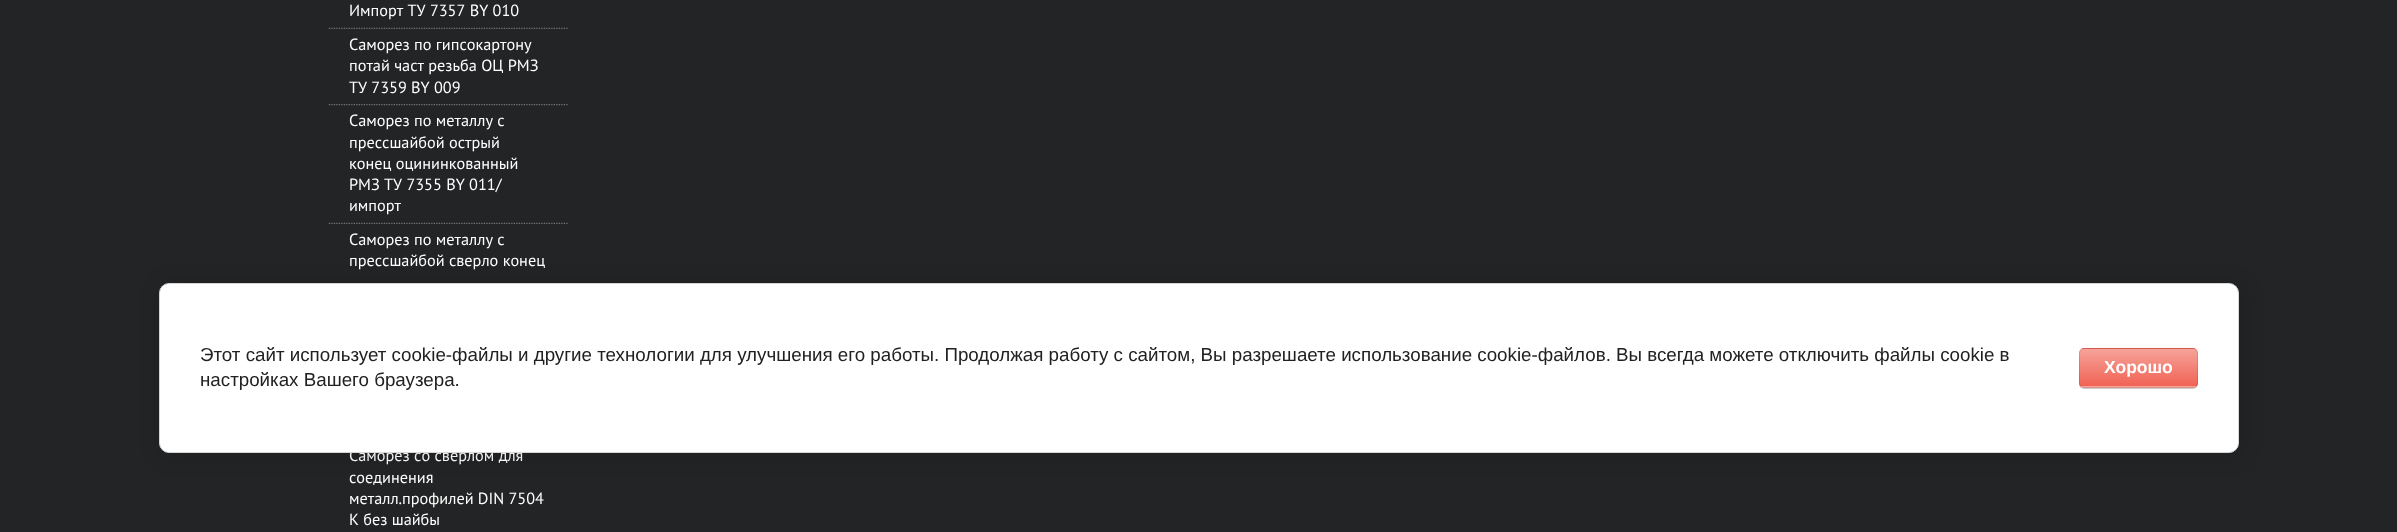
<svg xmlns="http://www.w3.org/2000/svg" width="2397" height="532" viewBox="0 0 2397 532">
  <defs>
    <clipPath id="clip1"><rect x="2079" y="348" width="119" height="40" rx="5"/></clipPath>
    <linearGradient id="g1" gradientUnits="userSpaceOnUse" x1="2138" y1="311" x2="2138" y2="349"><stop offset="0" stop-color="rgb(246,163,154)"/><stop offset="1" stop-color="rgb(240,99,84)"/></linearGradient>
    <linearGradient id="g2" gradientUnits="userSpaceOnUse" x1="2138" y1="349" x2="2138" y2="386"><stop offset="0" stop-color="rgb(246,163,154)"/><stop offset="1" stop-color="rgb(240,99,84)"/></linearGradient>
    <linearGradient id="g3" gradientUnits="userSpaceOnUse" x1="2138" y1="386" x2="2138" y2="424"><stop offset="0" stop-color="rgb(246,163,154)"/><stop offset="1" stop-color="rgb(240,99,84)"/></linearGradient>
  </defs>
  <rect width="100%" height="100%" fill="rgb(34,36,37)"/>
  <text x="349" y="16" font-family="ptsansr" font-size="16.25" fill="rgb(255,255,255)">Импорт ТУ 7357 ВY 010</text>
  <image x="328" y="27" width="240" height="2" href="pic1.png"/>
  <g font-family="ptsansr" font-size="16.25" fill="rgb(255,255,255)">
    <text>
      <tspan x="349" y="50">Саморез по гипсокартону</tspan>
      <tspan x="349" y="71">потай част резьба ОЦ РМЗ</tspan>
      <tspan x="349" y="93">ТУ 7359 BY 009</tspan>
    </text>
  </g>
  <image x="328" y="104" width="240" height="2" href="pic2.png"/>
  <g font-family="ptsansr" font-size="16.25" fill="rgb(255,255,255)">
    <text>
      <tspan x="349" y="126">Саморез по металлу с</tspan>
      <tspan x="349" y="148">прессшайбой острый</tspan>
      <tspan x="349" y="169">конец оцининкованный</tspan>
      <tspan x="349" y="190">РМЗ ТУ 7355 ВY 011/</tspan>
      <tspan x="349" y="211">импорт</tspan>
    </text>
  </g>
  <image x="328" y="222" width="240" height="2" href="pic1.png"/>
  <g font-family="ptsansr" font-size="16.25" fill="rgb(255,255,255)">
    <text>
      <tspan x="349" y="245">Саморез по металлу с</tspan>
      <tspan x="349" y="266">прессшайбой сверло конец</tspan>
    </text>
    <text>
      <tspan x="349" y="461">Саморез со сверлом для</tspan>
      <tspan x="349" y="483">соединения</tspan>
      <tspan x="349" y="504">металл.профилей DIN 7504</tspan>
      <tspan x="349" y="525">K без шайбы</tspan>
    </text>
  </g>
  <rect x="161" y="285" width="2080" height="170" rx="10" fill="rgba(0,0,0,0.14)" filter="blur(11px)"/>
  <rect x="159.5" y="283.5" width="2079" height="169" rx="9.5" fill="rgb(255,255,255)" stroke="rgb(214,214,214)"/>
  <g font-family="Liberation Sans" font-size="18.75" fill="rgb(33,33,33)">
    <text>
      <tspan x="200" y="361">Этот сайт использует cookie-файлы и другие технологии для улучшения его работы. Продолжая работу с сайтом, Вы разрешаете использование cookie-файлов. Вы всегда можете отключить файлы cookie в</tspan>
      <tspan x="200" y="386">настройках Вашего браузера.</tspan>
    </text>
  </g>
  <rect x="2079" y="349" width="119" height="40" rx="5" fill="rgba(0,0,0,0.2)" filter="blur(0.5px)"/>
  <g clip-path="url(#clip1)">
    <rect x="2079" y="348" width="119" height="1" fill="url(#g1)"/>
    <rect x="2079" y="349" width="119" height="37" fill="url(#g2)"/>
    <rect x="2079" y="386" width="119" height="2" fill="url(#g3)"/>
  </g>
  <rect x="2079.5" y="348.5" width="118" height="39" rx="4.5" fill="none" stroke="rgba(0,0,0,0.1)"/>
  <text x="2104" y="373" font-family="Liberation Sans" font-size="17.5" font-weight="bold" fill="rgb(255,255,255)">Хорошо</text>
</svg>
